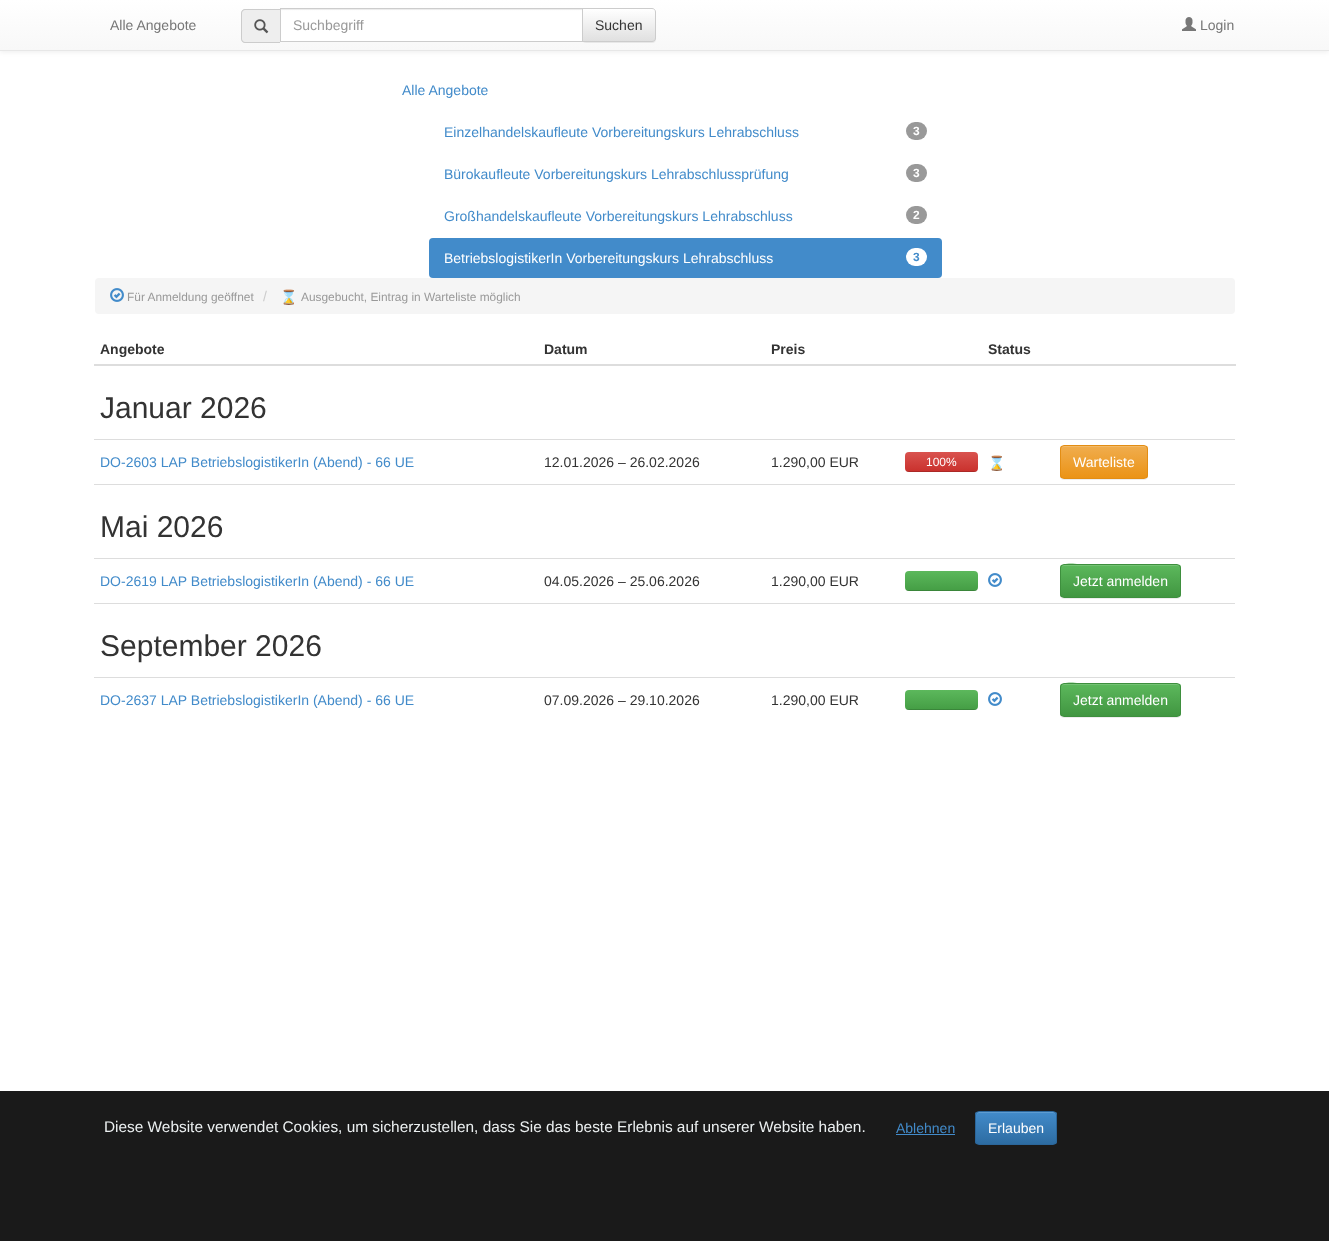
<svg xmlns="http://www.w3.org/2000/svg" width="1329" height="1241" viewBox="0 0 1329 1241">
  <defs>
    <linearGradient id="g1" gradientUnits="userSpaceOnUse" x1="665" y1="0" x2="665" y2="50"><stop offset="0" stop-color="rgb(255,255,255)"/><stop offset="1" stop-color="rgb(248,248,248)"/></linearGradient>
    <clipPath id="clip1"><path d="M582 8H652C654 8 656 10 656 12V38C656 40 654 42 652 42H582Z"/></clipPath>
    <linearGradient id="g2" gradientUnits="userSpaceOnUse" x1="619" y1="9" x2="619" y2="41"><stop offset="0" stop-color="rgb(255,255,255)"/><stop offset="1" stop-color="rgb(224,224,224)"/></linearGradient>
    <linearGradient id="g3" gradientUnits="userSpaceOnUse" x1="942" y1="452" x2="942" y2="472"><stop offset="0" stop-color="rgb(217,83,79)"/><stop offset="1" stop-color="rgb(201,48,44)"/></linearGradient>
    <clipPath id="clip2"><rect x="905" y="452" width="73" height="20" rx="4"/></clipPath>
    <clipPath id="clip3"><rect x="1060" y="445" width="88" height="34" rx="4"/></clipPath>
    <linearGradient id="g4" gradientUnits="userSpaceOnUse" x1="1104" y1="446" x2="1104" y2="478"><stop offset="0" stop-color="rgb(240,173,78)"/><stop offset="1" stop-color="rgb(235,147,22)"/></linearGradient>
    <linearGradient id="g5" gradientUnits="userSpaceOnUse" x1="942" y1="571" x2="942" y2="591"><stop offset="0" stop-color="rgb(92,184,92)"/><stop offset="1" stop-color="rgb(68,157,68)"/></linearGradient>
    <clipPath id="clip4"><rect x="905" y="571" width="73" height="20" rx="4"/></clipPath>
    <clipPath id="clip5"><rect x="1060" y="564" width="121" height="34" rx="4"/></clipPath>
    <linearGradient id="g6" gradientUnits="userSpaceOnUse" x1="1121" y1="565" x2="1121" y2="597"><stop offset="0" stop-color="rgb(92,184,92)"/><stop offset="1" stop-color="rgb(65,150,65)"/></linearGradient>
    <linearGradient id="g7" gradientUnits="userSpaceOnUse" x1="942" y1="690" x2="942" y2="710"><stop offset="0" stop-color="rgb(92,184,92)"/><stop offset="1" stop-color="rgb(68,157,68)"/></linearGradient>
    <clipPath id="clip6"><rect x="905" y="690" width="73" height="20" rx="4"/></clipPath>
    <clipPath id="clip7"><rect x="1060" y="683" width="121" height="34" rx="4"/></clipPath>
    <linearGradient id="g8" gradientUnits="userSpaceOnUse" x1="1121" y1="684" x2="1121" y2="716"><stop offset="0" stop-color="rgb(92,184,92)"/><stop offset="1" stop-color="rgb(65,150,65)"/></linearGradient>
    <clipPath id="clip8"><rect x="975" y="1111" width="82" height="34" rx="4"/></clipPath>
    <linearGradient id="g9" gradientUnits="userSpaceOnUse" x1="1016" y1="1112" x2="1016" y2="1144"><stop offset="0" stop-color="rgb(66,139,202)"/><stop offset="1" stop-color="rgb(45,108,162)"/></linearGradient>
  </defs>
  <rect width="100%" height="100%" fill="rgb(255,255,255)"/>
  <rect x="0" y="1" width="1329" height="51" fill="rgba(0,0,0,0.07)" filter="blur(2.5px)"/>
  <rect x="0" y="0" width="1329" height="50" fill="url(#g1)"/>
  <rect x="0" y="50" width="1329" height="1" fill="rgb(231,231,231)"/>
  <text x="110" y="30" font-family="Liberation Sans" font-size="14" fill="rgb(119,119,119)">Alle Angebote</text>
  <path d="M245 9H280V43H245C243 43 241 41 241 39V13C241 11 243 9 245 9Z" fill="rgb(238,238,238)"/>
  <path d="M245 9H280V43H245C243 43 241 41 241 39V13C241 11 243 9 245 9ZM245 10H280V42H245C243.5 42 242 40.5 242 39V13C242 11.5 243.5 10 245 10Z" fill="rgb(204,204,204)" fill-rule="evenodd"/>
  <image x="254" y="19" width="15" height="15" href="pic1.png"/>
  <rect x="582" y="9" width="74" height="34" rx="4" fill="rgba(0,0,0,0.07)" filter="blur(0.5px)"/>
  <rect x="281" y="11" width="301" height="30" fill="rgb(255,255,255)"/>
  <rect x="281" y="9" width="301" height="1" fill="rgb(236,236,236)"/>
  <g clip-path="url(#clip1)">
    <rect x="583" y="9" width="73" height="32" fill="url(#g2)"/>
  </g>
  <path d="M582.5 8.5H652C654 8.5 655.5 10 655.5 12V38C655.5 40 654 41.5 652 41.5H582.5Z" fill="none" stroke="rgb(204,204,204)"/>
  <rect x="280.5" y="8.5" width="302" height="33" fill="none" stroke="rgb(204,204,204)"/>
  <text x="293" y="30" font-family="Liberation Sans" font-size="14" fill="rgb(153,153,153)">Suchbegriff</text>
  <text x="595" y="30" font-family="Liberation Sans" font-size="14" fill="rgb(51,51,51)">Suchen</text>
  <image x="1182" y="17" width="14" height="14" href="pic2.png"/>
  <text x="1200" y="30" font-family="Liberation Sans" font-size="14" fill="rgb(119,119,119)">Login</text>
  <g font-family="Liberation Sans" font-size="14" fill="rgb(66,139,202)">
    <text x="402" y="95">Alle Angebote</text>
    <text x="444" y="137">Einzelhandelskaufleute Vorbereitungskurs Lehrabschluss</text>
  </g>
  <rect x="906" y="122" width="21" height="18" rx="9" fill="rgb(153,153,153)"/>
  <text x="913" y="135" font-family="Liberation Sans" font-size="12" font-weight="bold" fill="rgb(255,255,255)">3</text>
  <text x="444" y="179" font-family="Liberation Sans" font-size="14" fill="rgb(66,139,202)">Bürokaufleute Vorbereitungskurs Lehrabschlussprüfung</text>
  <rect x="906" y="164" width="21" height="18" rx="9" fill="rgb(153,153,153)"/>
  <text x="913" y="177" font-family="Liberation Sans" font-size="12" font-weight="bold" fill="rgb(255,255,255)">3</text>
  <text x="444" y="221" font-family="Liberation Sans" font-size="14" fill="rgb(66,139,202)">Großhandelskaufleute Vorbereitungskurs Lehrabschluss</text>
  <rect x="906" y="206" width="21" height="18" rx="9" fill="rgb(153,153,153)"/>
  <text x="913" y="219" font-family="Liberation Sans" font-size="12" font-weight="bold" fill="rgb(255,255,255)">2</text>
  <rect x="429" y="238" width="513" height="40" rx="4" fill="rgb(66,139,202)"/>
  <text x="444" y="263" font-family="Liberation Sans" font-size="14" fill="rgb(255,255,255)">BetriebslogistikerIn Vorbereitungskurs Lehrabschluss</text>
  <rect x="906" y="248" width="21" height="18" rx="9" fill="rgb(255,255,255)"/>
  <text x="913" y="261" font-family="Liberation Sans" font-size="12" font-weight="bold" fill="rgb(66,139,202)">3</text>
  <rect x="95" y="278" width="1140" height="36" rx="4" fill="rgb(245,245,245)"/>
  <image x="110" y="288" width="14" height="14" href="pic3.png"/>
  <text x="127" y="301" font-family="Liberation Sans" font-size="11.9" fill="rgb(153,153,153)">Für Anmeldung geöffnet</text>
  <text x="263" y="301" font-family="Liberation Sans" font-size="14" fill="rgb(204,204,204)">/</text>
  <text x="280" y="302" font-family="Noto Color Emoji" font-size="14" fill="rgb(49,112,143)">⌛</text>
  <text x="301" y="301" font-family="Liberation Sans" font-size="11.9" fill="rgb(153,153,153)">Ausgebucht, Eintrag in Warteliste möglich</text>
  <g font-family="Liberation Sans" font-size="14" font-weight="bold" fill="rgb(51,51,51)">
    <text x="100" y="354">Angebote</text>
    <text x="544" y="354">Datum</text>
    <text x="771" y="354">Preis</text>
    <text x="988" y="354">Status</text>
  </g>
  <rect x="94" y="364" width="1142" height="2" fill="rgb(221,221,221)"/>
  <text x="100" y="418" font-family="Liberation Sans" font-size="30" fill="rgb(51,51,51)">Januar 2026</text>
  <text x="100" y="467" font-family="Liberation Sans" font-size="14" fill="rgb(66,139,202)">DO-2603 LAP BetriebslogistikerIn (Abend) - 66 UE</text>
  <g font-family="Liberation Sans" font-size="14" fill="rgb(51,51,51)">
    <text x="544" y="467">12.01.2026 – 26.02.2026</text>
    <text x="771" y="467">1.290,00 EUR</text>
  </g>
  <rect x="905" y="452" width="73" height="20" rx="4" fill="url(#g3)"/>
  <g clip-path="url(#clip2)">
    <rect x="905" y="471" width="73" height="1" fill="rgba(0,0,0,0.15)"/>
  </g>
  <text x="926" y="466" font-family="Liberation Sans" font-size="12" fill="rgb(255,255,255)">100%</text>
  <text x="988" y="468" font-family="Noto Color Emoji" font-size="14" fill="rgb(49,112,143)">⌛</text>
  <rect x="94" y="439" width="1141" height="1" fill="rgb(221,221,221)"/>
  <rect x="1060" y="446" width="88" height="34" rx="4" fill="rgba(0,0,0,0.07)" filter="blur(0.5px)"/>
  <g clip-path="url(#clip3)">
    <rect x="1060" y="446" width="88" height="32" fill="url(#g4)"/>
  </g>
  <path d="M1064 447H1144C1146 447 1147 448 1147 450C1147 442 1134 446 1131 446H1077C1074 446 1061 442 1061 450C1061 448 1062 447 1064 447Z" fill="rgb(242,185,104)"/>
  <rect x="1060.5" y="445.5" width="87" height="33" rx="3.5" fill="none" stroke="rgb(227,141,19)"/>
  <text x="1073" y="467" font-family="Liberation Sans" font-size="14" fill="rgb(255,255,255)">Warteliste</text>
  <rect x="94" y="484" width="1141" height="1" fill="rgb(221,221,221)"/>
  <text x="100" y="537" font-family="Liberation Sans" font-size="30" fill="rgb(51,51,51)">Mai 2026</text>
  <text x="100" y="586" font-family="Liberation Sans" font-size="14" fill="rgb(66,139,202)">DO-2619 LAP BetriebslogistikerIn (Abend) - 66 UE</text>
  <g font-family="Liberation Sans" font-size="14" fill="rgb(51,51,51)">
    <text x="544" y="586">04.05.2026 – 25.06.2026</text>
    <text x="771" y="586">1.290,00 EUR</text>
  </g>
  <rect x="905" y="571" width="73" height="20" rx="4" fill="url(#g5)"/>
  <g clip-path="url(#clip4)">
    <rect x="905" y="590" width="73" height="1" fill="rgba(0,0,0,0.15)"/>
  </g>
  <image x="988" y="573" width="14" height="14" href="pic4.png"/>
  <rect x="94" y="558" width="1141" height="1" fill="rgb(221,221,221)"/>
  <rect x="1060" y="565" width="121" height="34" rx="4" fill="rgba(0,0,0,0.07)" filter="blur(0.5px)"/>
  <g clip-path="url(#clip5)">
    <rect x="1060" y="565" width="121" height="32" fill="url(#g6)"/>
  </g>
  <path d="M1064 566H1177C1179 566 1180 567 1180 569C1180 567 1179 565 1177 565H1083C1082 565 1061 560 1061 569C1061 567 1062 566 1064 566Z" fill="rgb(116,194,116)"/>
  <rect x="1060.5" y="564.5" width="120" height="33" rx="3.5" fill="none" stroke="rgb(62,143,62)"/>
  <text x="1073" y="586" font-family="Liberation Sans" font-size="14" fill="rgb(255,255,255)">Jetzt anmelden</text>
  <rect x="94" y="603" width="1141" height="1" fill="rgb(221,221,221)"/>
  <text x="100" y="656" font-family="Liberation Sans" font-size="30" fill="rgb(51,51,51)">September 2026</text>
  <text x="100" y="705" font-family="Liberation Sans" font-size="14" fill="rgb(66,139,202)">DO-2637 LAP BetriebslogistikerIn (Abend) - 66 UE</text>
  <g font-family="Liberation Sans" font-size="14" fill="rgb(51,51,51)">
    <text x="544" y="705">07.09.2026 – 29.10.2026</text>
    <text x="771" y="705">1.290,00 EUR</text>
  </g>
  <rect x="905" y="690" width="73" height="20" rx="4" fill="url(#g7)"/>
  <g clip-path="url(#clip6)">
    <rect x="905" y="709" width="73" height="1" fill="rgba(0,0,0,0.15)"/>
  </g>
  <image x="988" y="692" width="14" height="14" href="pic4.png"/>
  <rect x="94" y="677" width="1141" height="1" fill="rgb(221,221,221)"/>
  <rect x="1060" y="684" width="121" height="34" rx="4" fill="rgba(0,0,0,0.07)" filter="blur(0.5px)"/>
  <g clip-path="url(#clip7)">
    <rect x="1060" y="684" width="121" height="32" fill="url(#g8)"/>
  </g>
  <path d="M1064 685H1177C1179 685 1180 686 1180 688C1180 686 1179 684 1177 684H1083C1082 684 1061 679 1061 688C1061 686 1062 685 1064 685Z" fill="rgb(116,194,116)"/>
  <rect x="1060.5" y="683.5" width="120" height="33" rx="3.5" fill="none" stroke="rgb(62,143,62)"/>
  <text x="1073" y="705" font-family="Liberation Sans" font-size="14" fill="rgb(255,255,255)">Jetzt anmelden</text>
  <rect x="0" y="1091" width="1329" height="150" fill="rgb(26,26,26)"/>
  <text x="104" y="1132" font-family="Liberation Sans" font-size="15.4" fill="rgb(236,240,241)">Diese Website verwendet Cookies, um sicherzustellen, dass Sie das beste Erlebnis auf unserer Website haben.</text>
  <text x="896" y="1133" font-family="Liberation Sans" font-size="14" fill="rgb(66,139,202)">Ablehnen</text>
  <rect x="896" y="1134" width="59" height="1" fill="rgb(66,139,202)"/>
  <g clip-path="url(#clip8)">
    <rect x="975" y="1112" width="82" height="32" fill="url(#g9)"/>
  </g>
  <path d="M979 1113H1053C1055 1113 1056 1114 1056 1116C1056 1109 1045 1112 1041 1112H991C987 1112 976 1109 976 1116C976 1114 977 1113 979 1113Z" fill="rgb(94,156,209)"/>
  <rect x="975.5" y="1111.5" width="81" height="33" rx="3.5" fill="none" stroke="rgb(43,102,154)"/>
  <text x="988" y="1133" font-family="Liberation Sans" font-size="14" fill="rgb(255,255,255)">Erlauben</text>
</svg>
